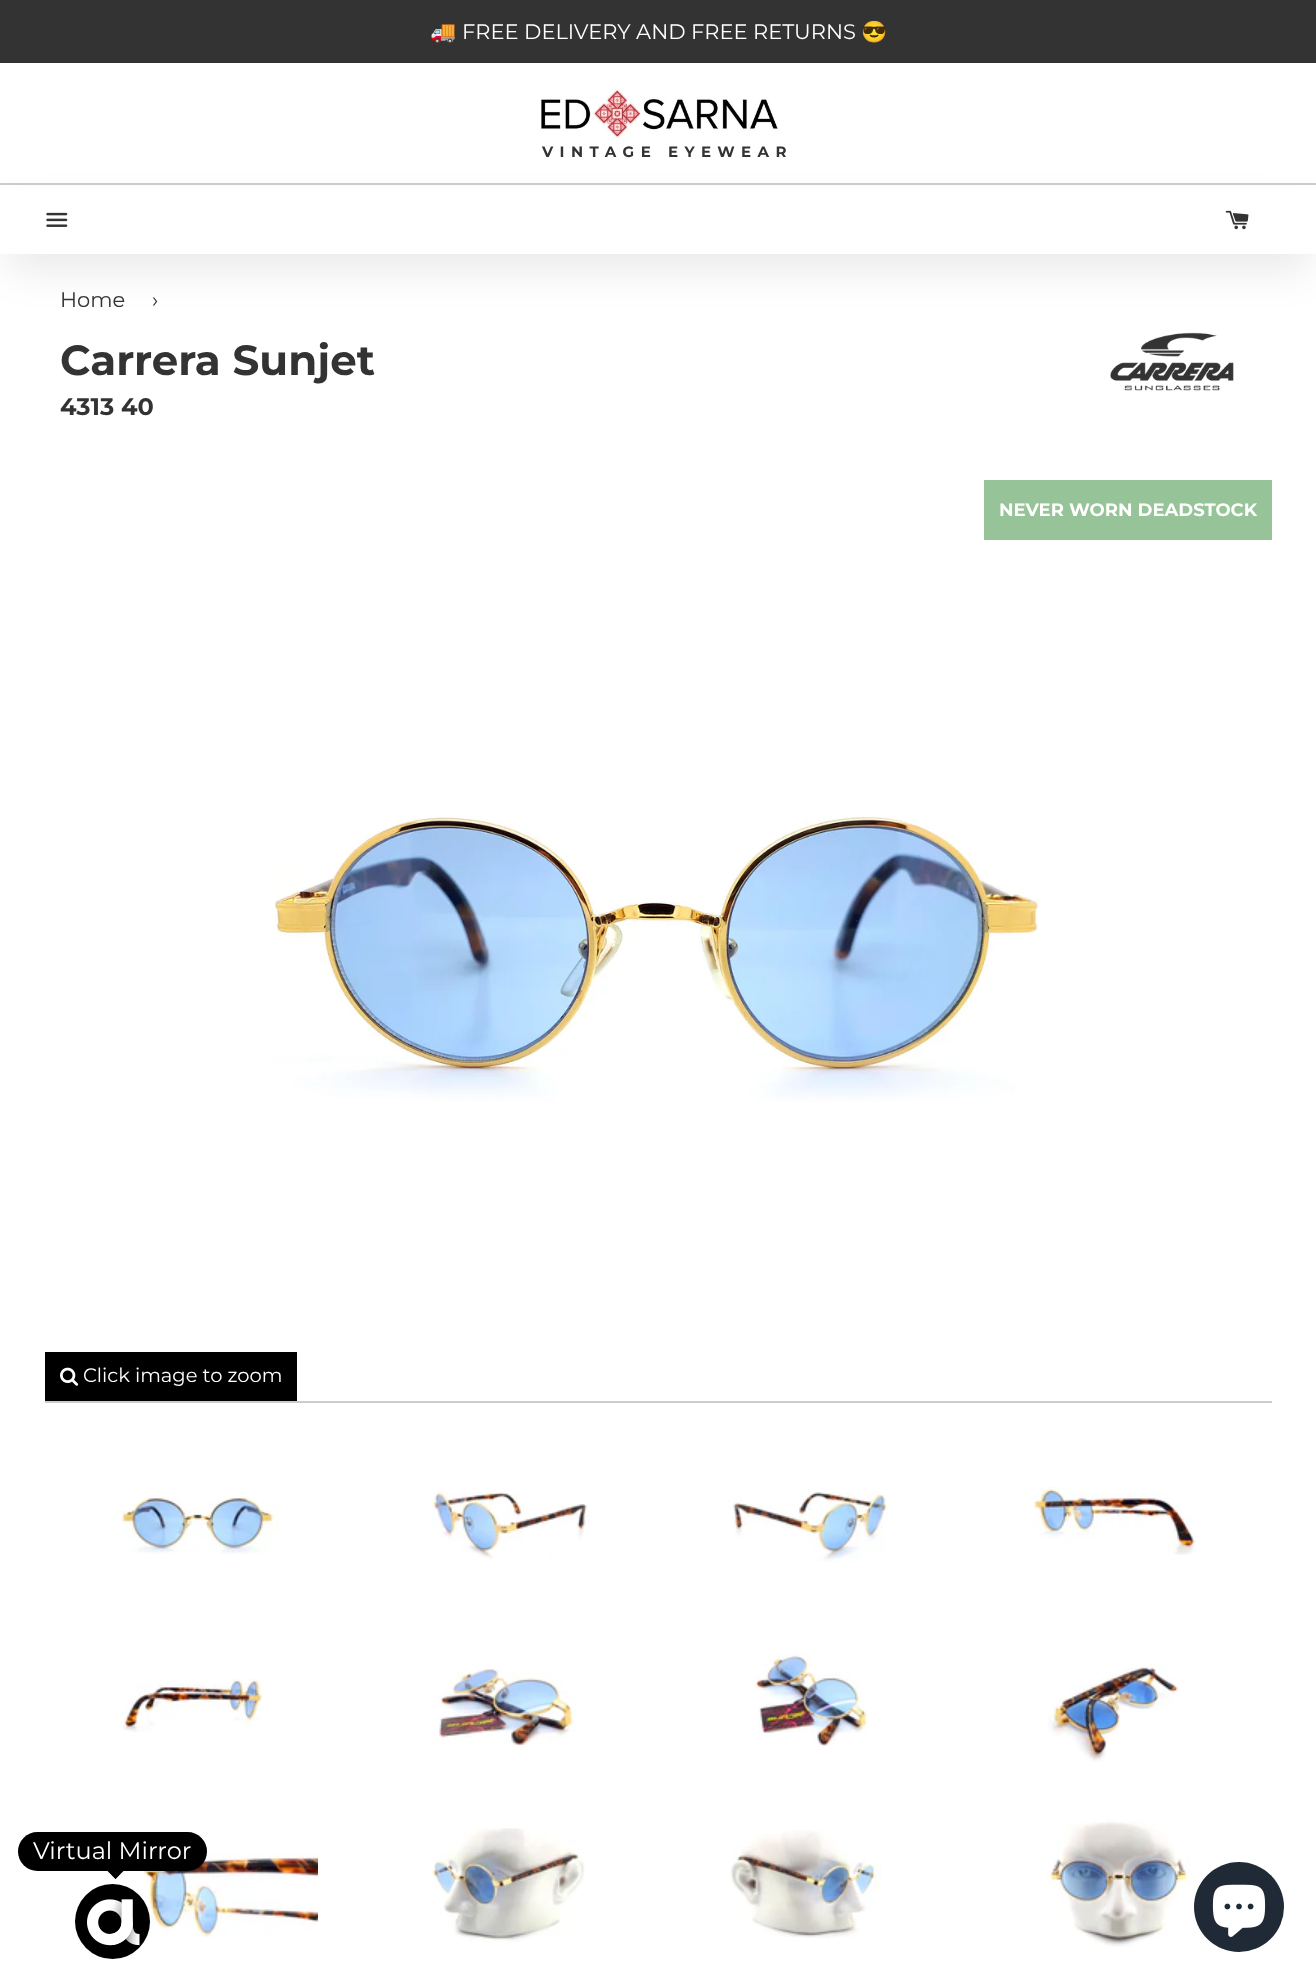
<svg xmlns="http://www.w3.org/2000/svg" width="1316" height="1983" viewBox="0 0 1316 1983">
  <rect width="100%" height="100%" fill="rgb(255,255,255)"/>
  <rect x="0" y="0" width="1316" height="63" fill="rgb(51,51,51)"/>
  <text x="430" y="39" font-family="Noto Color Emoji" font-size="21" fill="rgb(255,255,255)">🚚</text>
  <text x="462" y="39" font-family="Montserrat" font-size="21" fill="rgb(255,255,255)">FREE DELIVERY AND FREE RETURNS</text>
  <text x="861" y="39" font-family="Noto Color Emoji" font-size="21" fill="rgb(255,255,255)">😎</text>
  <image x="541" y="88" width="237" height="51" href="pic1.png"/>
  <text x="542" y="157" font-family="Montserrat" font-size="15" font-weight="bold" letter-spacing="6.5" fill="rgb(51,51,51)">VINTAGE EYEWEAR</text>
  <image x="1110" y="332" width="124" height="59" href="pic4.png"/>
  <rect x="8" y="213" width="1302" height="56" fill="rgba(0,0,0,0.09)" filter="blur(21px)"/>
  <rect x="0" y="187" width="1316" height="67" fill="rgb(255,255,255)"/>
  <rect x="0" y="183" width="1316" height="2" fill="rgb(204,204,204)"/>
  <image x="46" y="212" width="22" height="15" href="pic2.png"/>
  <image x="1225" y="210" width="24" height="20" href="pic3.png"/>
  <g font-family="Montserrat" font-size="21" fill="rgb(51,51,51)">
    <text x="60" y="307">Home</text>
    <text x="152" y="307">›</text>
  </g>
  <text x="60" y="375" font-family="Montserrat" font-size="42" font-weight="bold" fill="rgb(51,51,51)">Carrera Sunjet</text>
  <text x="60" y="415" font-family="Montserrat" font-size="24" font-weight="bold" fill="rgb(51,51,51)">4313 40</text>
  <rect x="984" y="480" width="288" height="60" fill="rgb(150,195,151)"/>
  <text x="999" y="516" font-family="Montserrat" font-size="18" font-weight="bold" fill="rgb(255,255,255)">NEVER WORN DEADSTOCK</text>
  <image x="274" y="816" width="765" height="286" href="pic5.png"/>
  <rect x="45" y="1352" width="252" height="49" fill="rgb(0,0,0)"/>
  <image x="60" y="1367" width="19" height="19" href="pic6.png"/>
  <text x="83" y="1382" font-family="Montserrat" font-size="19.5" fill="rgb(255,255,255)">Click image to zoom</text>
  <rect x="45" y="1401" width="1227" height="2" fill="rgb(204,204,204)"/>
  <image x="121" y="1497" width="158" height="57" href="pic7.png"/>
  <image x="432" y="1491" width="158" height="68" href="pic8.png"/>
  <image x="733" y="1492" width="155" height="70" href="pic9.png"/>
  <image x="1033" y="1487" width="164" height="68" href="pic10.png"/>
  <image x="122" y="1679" width="141" height="53" href="pic11.png"/>
  <image x="434" y="1669" width="143" height="78" href="pic12.png"/>
  <image x="755" y="1654" width="113" height="93" href="pic13.png"/>
  <image x="1048" y="1666" width="131" height="96" href="pic14.png"/>
  <image x="143" y="1853" width="175" height="85" href="pic15.png"/>
  <image x="432" y="1828" width="153" height="114" href="pic16.png"/>
  <image x="730" y="1830" width="152" height="108" href="pic17.png"/>
  <image x="1047" y="1820" width="144" height="127" href="pic18.png"/>
  <circle cx="112.5" cy="1921.5" r="37.5" fill="rgb(0,0,0)"/>
  <rect x="18" y="1832" width="189" height="39" rx="19.5" fill="rgb(0,0,0)"/>
  <text x="33" y="1859" font-family="Montserrat" font-size="24" fill="rgb(255,255,255)">Virtual Mirror</text>
  <path d="M119.5 1866.5L124 1870.5L115.5 1879L111.5 1874.5Z" fill="rgb(0,0,0)"/>
  <path d="M111.5 1866.5L119.5 1874.5L115.5 1879L107 1870.5Z" fill="rgb(0,0,0)"/>
  <image x="87" y="1899" width="53" height="47" href="pic19.png"/>
  <circle cx="1239" cy="1907" r="45" fill="rgb(32,42,54)"/>
  <image x="1212" y="1884" width="54" height="53" href="pic20.png"/>
</svg>
